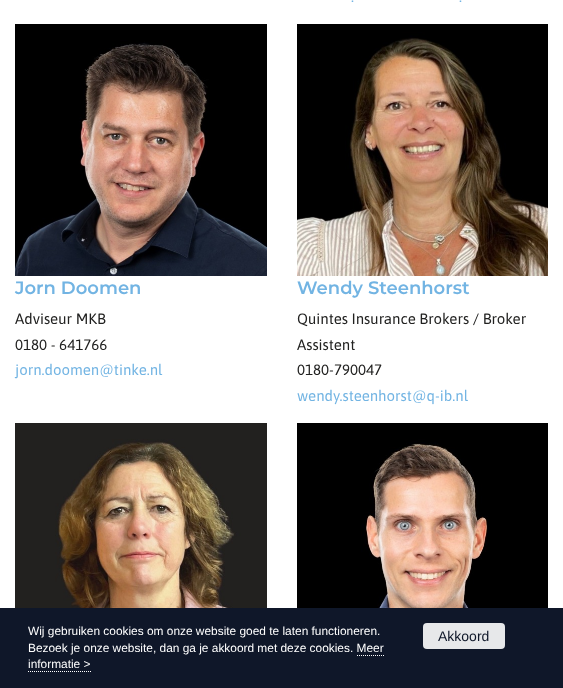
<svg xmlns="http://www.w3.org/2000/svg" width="563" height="688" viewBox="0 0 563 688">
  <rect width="100%" height="100%" fill="rgb(255,255,255)"/>
  <g font-family="Asap" font-size="15" fill="rgb(114,180,227)">
    <text x="351" y="2">.</text>
    <text x="459" y="2">.</text>
  </g>
  <image x="15" y="24" width="252" height="252" href="pic1.png"/>
  <text x="15" y="294" font-family="Montserrat" font-size="18" font-weight="600" fill="rgb(114,180,227)">Jorn Doomen</text>
  <g font-family="Asap" font-size="15" fill="rgb(34,34,33)">
    <text>
      <tspan x="15" y="324">Adviseur MKB</tspan>
      <tspan x="15" y="350">0180 - 641766</tspan>
    </text>
  </g>
  <text x="15" y="375" font-family="Asap" font-size="15" fill="rgb(114,180,227)">jorn.doomen@tinke.nl</text>
  <image x="297" y="24" width="251" height="252" href="pic2.png"/>
  <text x="297" y="294" font-family="Montserrat" font-size="18" font-weight="600" fill="rgb(114,180,227)">Wendy Steenhorst</text>
  <g font-family="Asap" font-size="15" fill="rgb(34,34,33)">
    <text>
      <tspan x="297" y="324">Quintes Insurance Brokers / Broker</tspan>
      <tspan x="297" y="350">Assistent</tspan>
      <tspan x="297" y="375">0180-790047</tspan>
    </text>
  </g>
  <text x="297" y="401" font-family="Asap" font-size="15" fill="rgb(114,180,227)">wendy.steenhorst@q-ib.nl</text>
  <image x="15" y="423" width="252" height="185" href="pic3.png"/>
  <image x="297" y="423" width="251" height="185" href="pic4.png"/>
  <rect x="0" y="608" width="563" height="80" fill="rgb(15,23,41)"/>
  <g font-family="Liberation Sans" font-size="11.9" fill="rgb(255,255,255)">
    <text>
      <tspan x="28" y="635">Wij gebruiken cookies om onze website goed te laten functioneren.</tspan>
      <tspan x="28" y="652">Bezoek je onze website, dan ga je akkoord met deze cookies. Meer</tspan>
      <tspan x="28" y="668">informatie &gt;</tspan>
    </text>
  </g>
  <path d="M357 655.5H384" fill="none" stroke="rgb(255,255,255)" stroke-dasharray="1 1"/>
  <path d="M28 671.5H91" fill="none" stroke="rgb(255,255,255)" stroke-dasharray="1 1"/>
  <rect x="423" y="623" width="82" height="26" rx="4" fill="rgb(231,232,234)"/>
  <text x="438" y="641" font-family="Liberation Sans" font-size="14" fill="rgb(15,23,41)">Akkoord</text>
</svg>
